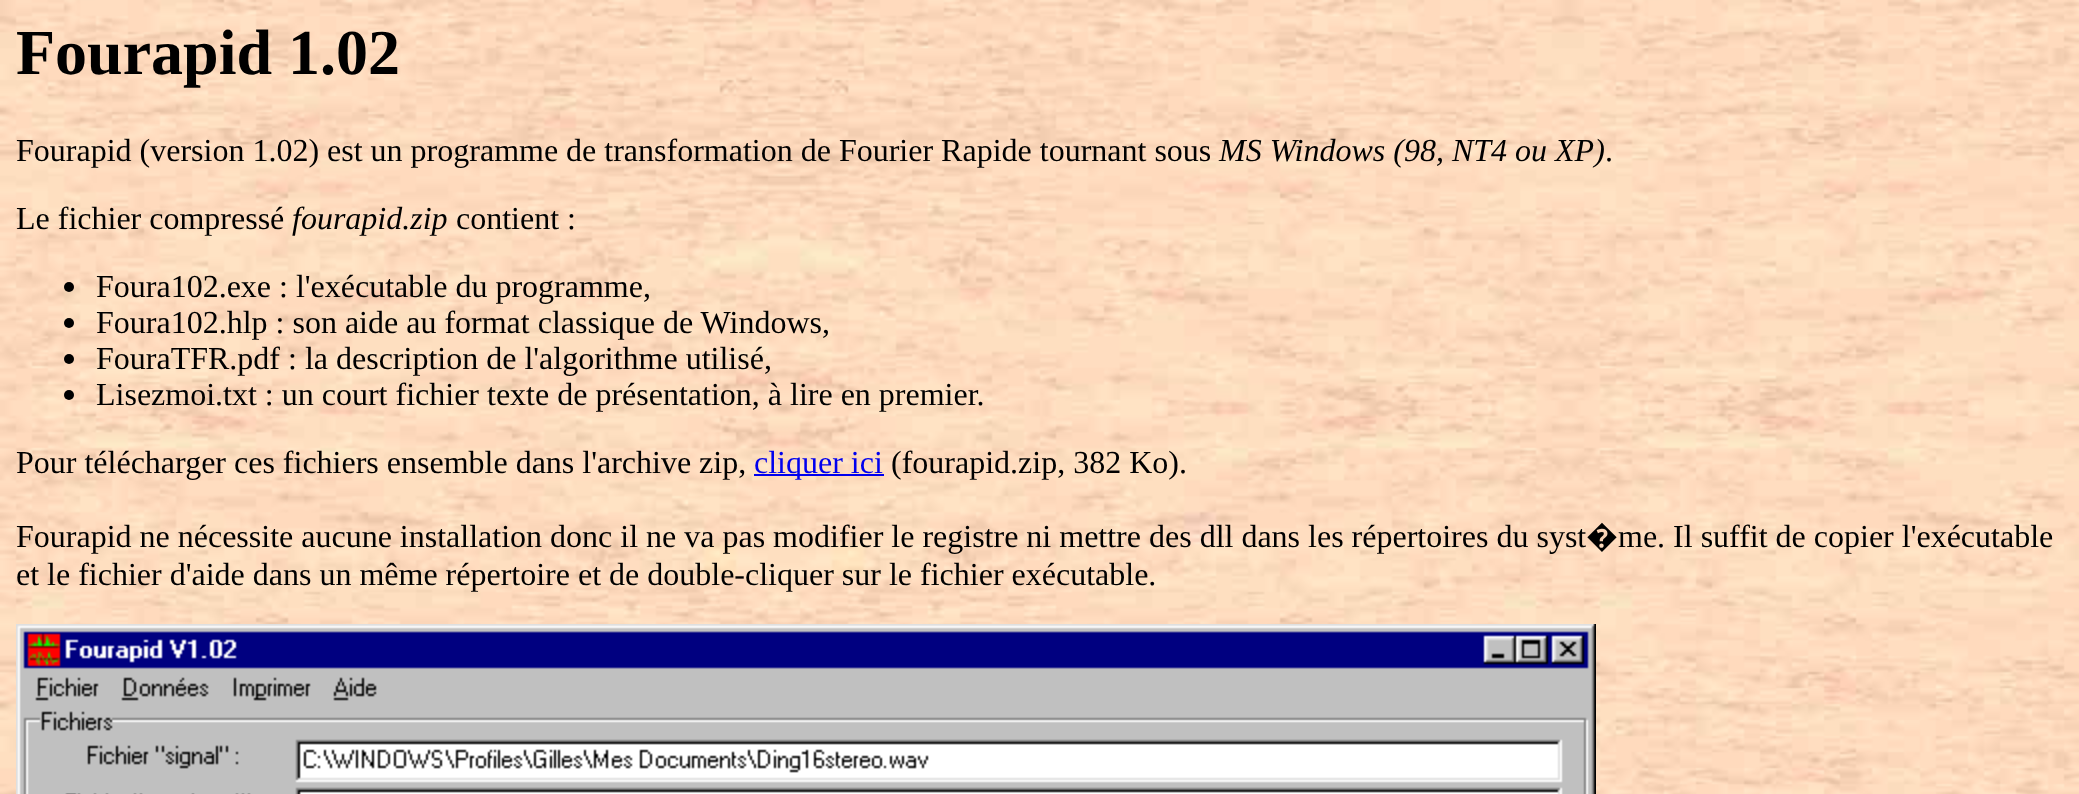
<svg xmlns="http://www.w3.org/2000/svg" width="2079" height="794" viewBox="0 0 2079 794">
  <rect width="100%" height="100%" fill="rgb(255,255,255)"/>
  <image x="0" y="0" width="2079" height="794" href="pic1.png"/>
  <text x="16" y="74" font-family="Liberation Serif" font-size="64" font-weight="bold" fill="rgb(0,0,0)">Fourapid 1.02</text>
  <text x="16" y="161" font-family="Liberation Serif" font-size="32" fill="rgb(0,0,0)">Fourapid (version 1.02) est un programme de transformation de Fourier Rapide tournant sous</text>
  <text x="1219" y="161" font-family="Liberation Serif" font-size="32" font-style="italic" fill="rgb(0,0,0)">MS Windows (98, NT4 ou XP)</text>
  <g font-family="Liberation Serif" font-size="32" fill="rgb(0,0,0)">
    <text x="1605" y="161">.</text>
    <text x="16" y="229">Le fichier compressé</text>
  </g>
  <text x="292" y="229" font-family="Liberation Serif" font-size="32" font-style="italic" fill="rgb(0,0,0)">fourapid.zip</text>
  <text x="456" y="229" font-family="Liberation Serif" font-size="32" fill="rgb(0,0,0)">contient :</text>
  <circle cx="69" cy="287" r="5" fill="rgb(0,0,0)"/>
  <text x="96" y="297" font-family="Liberation Serif" font-size="32" fill="rgb(0,0,0)">Foura102.exe : l'exécutable du programme,</text>
  <circle cx="69" cy="323" r="5" fill="rgb(0,0,0)"/>
  <text x="96" y="333" font-family="Liberation Serif" font-size="32" fill="rgb(0,0,0)">Foura102.hlp : son aide au format classique de Windows,</text>
  <circle cx="69" cy="359" r="5" fill="rgb(0,0,0)"/>
  <text x="96" y="369" font-family="Liberation Serif" font-size="32" fill="rgb(0,0,0)">FouraTFR.pdf : la description de l'algorithme utilisé,</text>
  <circle cx="69" cy="395" r="5" fill="rgb(0,0,0)"/>
  <g font-family="Liberation Serif" font-size="32" fill="rgb(0,0,0)">
    <text x="96" y="405">Lisezmoi.txt : un court fichier texte de présentation, à lire en premier.</text>
    <text x="16" y="473">Pour télécharger ces fichiers ensemble dans l'archive zip,</text>
  </g>
  <rect x="754" y="474" width="130" height="2" fill="rgb(0,0,238)"/>
  <text x="754" y="473" font-family="Liberation Serif" font-size="32" fill="rgb(0,0,238)">cliquer ici</text>
  <g font-family="Liberation Serif" font-size="32" fill="rgb(0,0,0)">
    <text x="891" y="473">(fourapid.zip, 382 Ko).</text>
    <text x="16" y="547">Fourapid ne nécessite aucune installation donc il ne va pas modifier le registre ni mettre des dll dans les répertoires du syst</text>
  </g>
  <text x="1586" y="547" font-family="Noto Sans" font-size="32" fill="rgb(0,0,0)">�</text>
  <g font-family="Liberation Serif" font-size="32" fill="rgb(0,0,0)">
    <text x="1618" y="547">me. Il suffit de copier l'exécutable</text>
    <text x="16" y="585">et le fichier d'aide dans un même répertoire et de double-cliquer sur le fichier exécutable.</text>
  </g>
  <image x="16" y="624" width="1580" height="170" href="pic2.png"/>
</svg>
